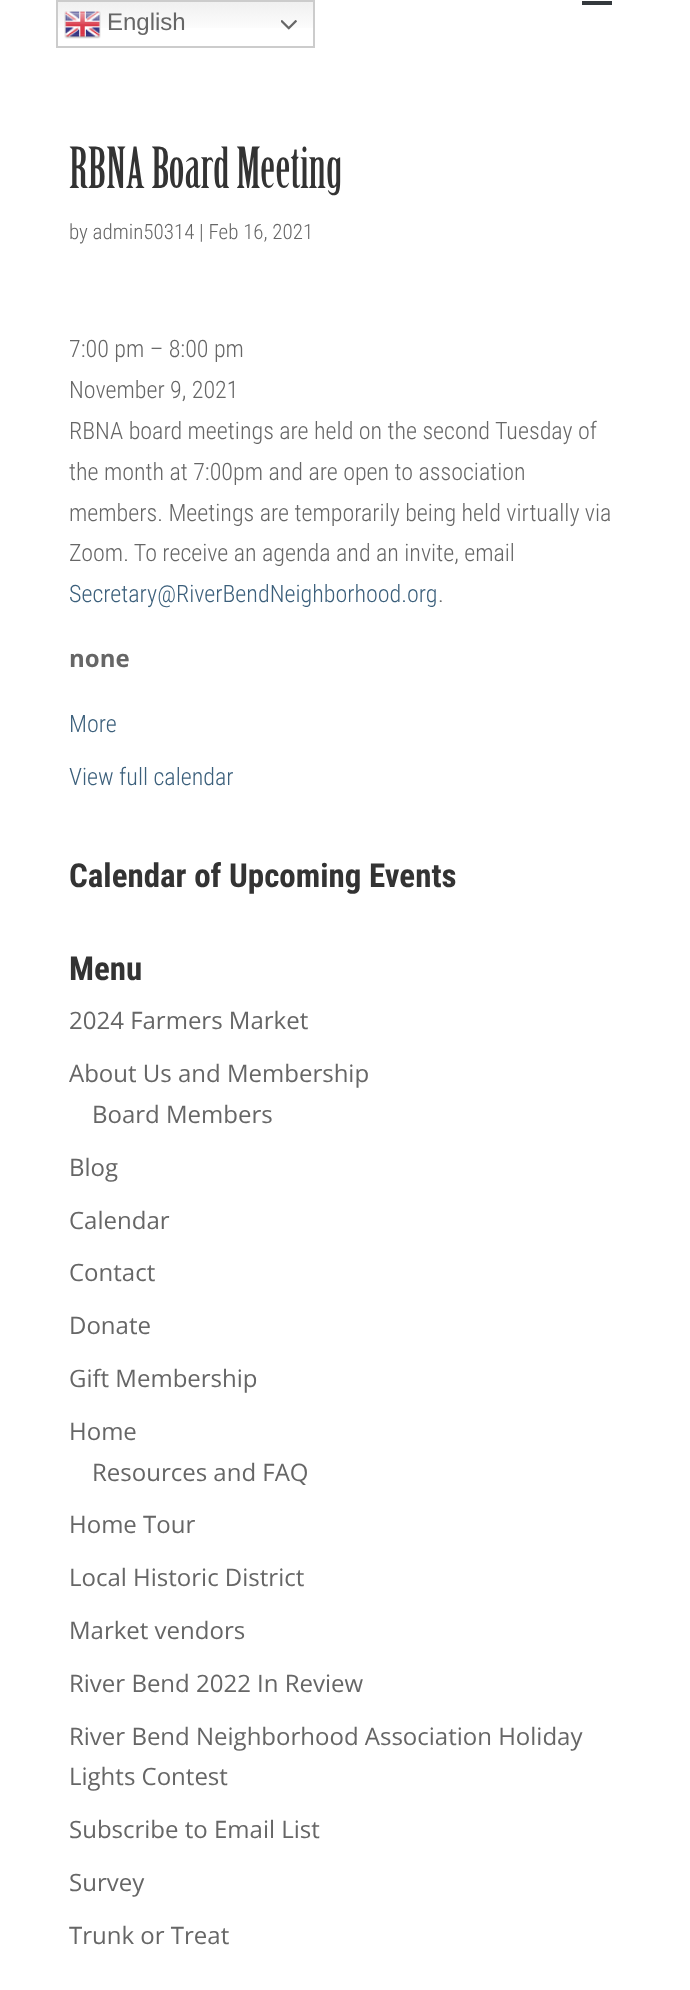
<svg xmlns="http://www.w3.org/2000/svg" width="690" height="1990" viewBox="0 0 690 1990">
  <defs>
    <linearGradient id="g1" gradientUnits="userSpaceOnUse" x1="185" y1="0" x2="185" y2="48"><stop offset="0" stop-color="rgb(239,239,239)"/><stop offset="0.7" stop-color="rgb(255,255,255)"/></linearGradient>
  </defs>
  <rect width="100%" height="100%" fill="rgb(255,255,255)"/>
  <rect x="58" y="2" width="255" height="26" fill="url(#g1)"/>
  <rect x="57" y="1" width="257" height="46" fill="none" stroke="rgb(204,204,204)" stroke-width="2"/>
  <image x="64" y="11" width="37" height="28" href="pic1.png"/>
  <text x="107" y="30" font-family="Liberation Sans" font-size="24" fill="rgb(102,102,102)">English</text>
  <image x="281" y="20" width="16" height="10" href="pic2.png"/>
  <rect x="582" y="1" width="30" height="4" fill="rgb(52,57,61)"/>
  <text x="69" y="188" font-family="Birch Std" font-size="55.5" fill="rgb(51,51,51)">RBNA Board Meeting</text>
  <text x="69" y="239" font-family="Roboto Condensed" font-size="21" font-weight="300" fill="rgb(102,102,102)">by admin50314 | Feb 16, 2021</text>
  <g font-family="Roboto Condensed" font-size="24" font-weight="300" fill="rgb(102,102,102)">
    <text>
      <tspan x="69" y="357">7:00 pm – 8:00 pm</tspan>
      <tspan x="69" y="398">November 9, 2021</tspan>
      <tspan x="69" y="439">RBNA board meetings are held on the second Tuesday of</tspan>
      <tspan x="69" y="480">the month at 7:00pm and are open to association</tspan>
      <tspan x="69" y="521">members. Meetings are temporarily being held virtually via</tspan>
      <tspan x="69" y="561">Zoom. To receive an agenda and an invite, email</tspan>
    </text>
  </g>
  <text x="69" y="602" font-family="Roboto Condensed" font-size="24" font-weight="300" fill="rgb(59,95,123)">Secretary@RiverBendNeighborhood.org</text>
  <text x="438" y="602" font-family="Roboto Condensed" font-size="24" font-weight="300" fill="rgb(102,102,102)">.</text>
  <text x="69" y="667" font-family="Open Sans" font-size="24" font-weight="bold" fill="rgb(102,102,102)">none</text>
  <g font-family="Roboto Condensed" font-size="24" font-weight="300" fill="rgb(59,95,123)">
    <text x="69" y="732">More</text>
    <text x="69" y="785">View full calendar</text>
  </g>
  <g font-family="Roboto Condensed" font-size="33" font-weight="bold" fill="rgb(51,51,51)">
    <text x="69" y="887">Calendar of Upcoming Events</text>
    <text x="69" y="980">Menu</text>
  </g>
  <g font-family="Open Sans" font-size="24" fill="rgb(102,102,102)">
    <text x="69" y="1029">2024 Farmers Market</text>
    <text x="69" y="1082">About Us and Membership</text>
    <text x="92" y="1123">Board Members</text>
    <text x="69" y="1176">Blog</text>
    <text x="69" y="1229">Calendar</text>
    <text x="69" y="1281">Contact</text>
    <text x="69" y="1334">Donate</text>
    <text x="69" y="1387">Gift Membership</text>
    <text x="69" y="1440">Home</text>
    <text x="92" y="1481">Resources and FAQ</text>
    <text x="69" y="1533">Home Tour</text>
    <text x="69" y="1586">Local Historic District</text>
    <text x="69" y="1639">Market vendors</text>
    <text x="69" y="1692">River Bend 2022 In Review</text>
    <text>
      <tspan x="69" y="1745">River Bend Neighborhood Association Holiday</tspan>
      <tspan x="69" y="1785">Lights Contest</tspan>
    </text>
    <text x="69" y="1838">Subscribe to Email List</text>
    <text x="69" y="1891">Survey</text>
    <text x="69" y="1944">Trunk or Treat</text>
  </g>
</svg>
